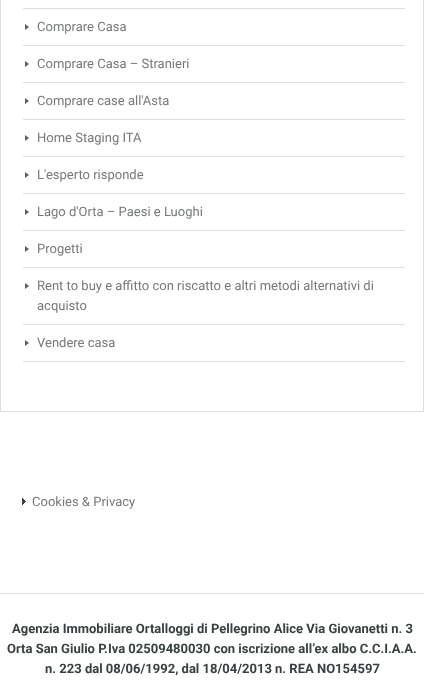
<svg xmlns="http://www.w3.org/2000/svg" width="424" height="694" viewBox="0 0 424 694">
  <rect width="100%" height="100%" fill="rgb(255,255,255)"/>
  <rect x="0.5" y="-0.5" width="423" height="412" fill="none" stroke="rgb(222,222,222)"/>
  <rect x="23" y="8" width="382" height="1" fill="rgb(222,222,222)"/>
  <image x="25" y="24" width="4" height="6" href="pic1.png"/>
  <rect x="23" y="45" width="382" height="1" fill="rgb(222,222,222)"/>
  <text x="37" y="31" font-family="Roboto" font-size="13" fill="rgb(117,121,122)">Comprare Casa</text>
  <image x="25" y="61" width="4" height="6" href="pic1.png"/>
  <rect x="23" y="82" width="382" height="1" fill="rgb(222,222,222)"/>
  <text x="37" y="68" font-family="Roboto" font-size="13" fill="rgb(117,121,122)">Comprare Casa – Stranieri</text>
  <image x="25" y="98" width="4" height="6" href="pic1.png"/>
  <rect x="23" y="119" width="382" height="1" fill="rgb(222,222,222)"/>
  <text x="37" y="105" font-family="Roboto" font-size="13" fill="rgb(117,121,122)">Comprare case all'Asta</text>
  <image x="25" y="135" width="4" height="6" href="pic1.png"/>
  <rect x="23" y="156" width="382" height="1" fill="rgb(222,222,222)"/>
  <text x="37" y="142" font-family="Roboto" font-size="13" fill="rgb(117,121,122)">Home Staging ITA</text>
  <image x="25" y="172" width="4" height="6" href="pic1.png"/>
  <rect x="23" y="193" width="382" height="1" fill="rgb(222,222,222)"/>
  <text x="37" y="179" font-family="Roboto" font-size="13" fill="rgb(117,121,122)">L'esperto risponde</text>
  <image x="25" y="209" width="4" height="6" href="pic1.png"/>
  <rect x="23" y="230" width="382" height="1" fill="rgb(222,222,222)"/>
  <text x="37" y="216" font-family="Roboto" font-size="13" fill="rgb(117,121,122)">Lago d'Orta – Paesi e Luoghi</text>
  <image x="25" y="246" width="4" height="6" href="pic1.png"/>
  <rect x="23" y="267" width="382" height="1" fill="rgb(222,222,222)"/>
  <text x="37" y="253" font-family="Roboto" font-size="13" fill="rgb(117,121,122)">Progetti</text>
  <image x="25" y="283" width="4" height="6" href="pic1.png"/>
  <rect x="23" y="324" width="382" height="1" fill="rgb(222,222,222)"/>
  <g font-family="Roboto" font-size="13" fill="rgb(117,121,122)">
    <text>
      <tspan x="37" y="290">Rent to buy e affitto con riscatto e altri metodi alternativi di</tspan>
      <tspan x="37" y="310">acquisto</tspan>
    </text>
  </g>
  <image x="25" y="340" width="4" height="6" href="pic1.png"/>
  <rect x="23" y="361" width="382" height="1" fill="rgb(222,222,222)"/>
  <text x="37" y="347" font-family="Roboto" font-size="13" fill="rgb(117,121,122)">Vendere casa</text>
  <image x="22" y="498" width="4" height="7" href="pic2.png"/>
  <text x="32" y="506" font-family="Roboto" font-size="13" fill="rgb(117,121,122)">Cookies &amp; Privacy</text>
  <rect x="0" y="593" width="424" height="1" fill="rgb(222,222,222)"/>
  <g font-family="Roboto" font-size="13" font-weight="bold" fill="rgb(57,64,65)">
    <text x="12" y="633">Agenzia Immobiliare Ortalloggi di Pellegrino Alice Via Giovanetti n. 3</text>
    <text x="7" y="653">Orta San Giulio P.Iva 02509480030 con iscrizione all’ex albo C.C.I.A.A.</text>
    <text x="45" y="673">n. 223 dal 08/06/1992, dal 18/04/2013 n. REA NO154597</text>
  </g>
</svg>
